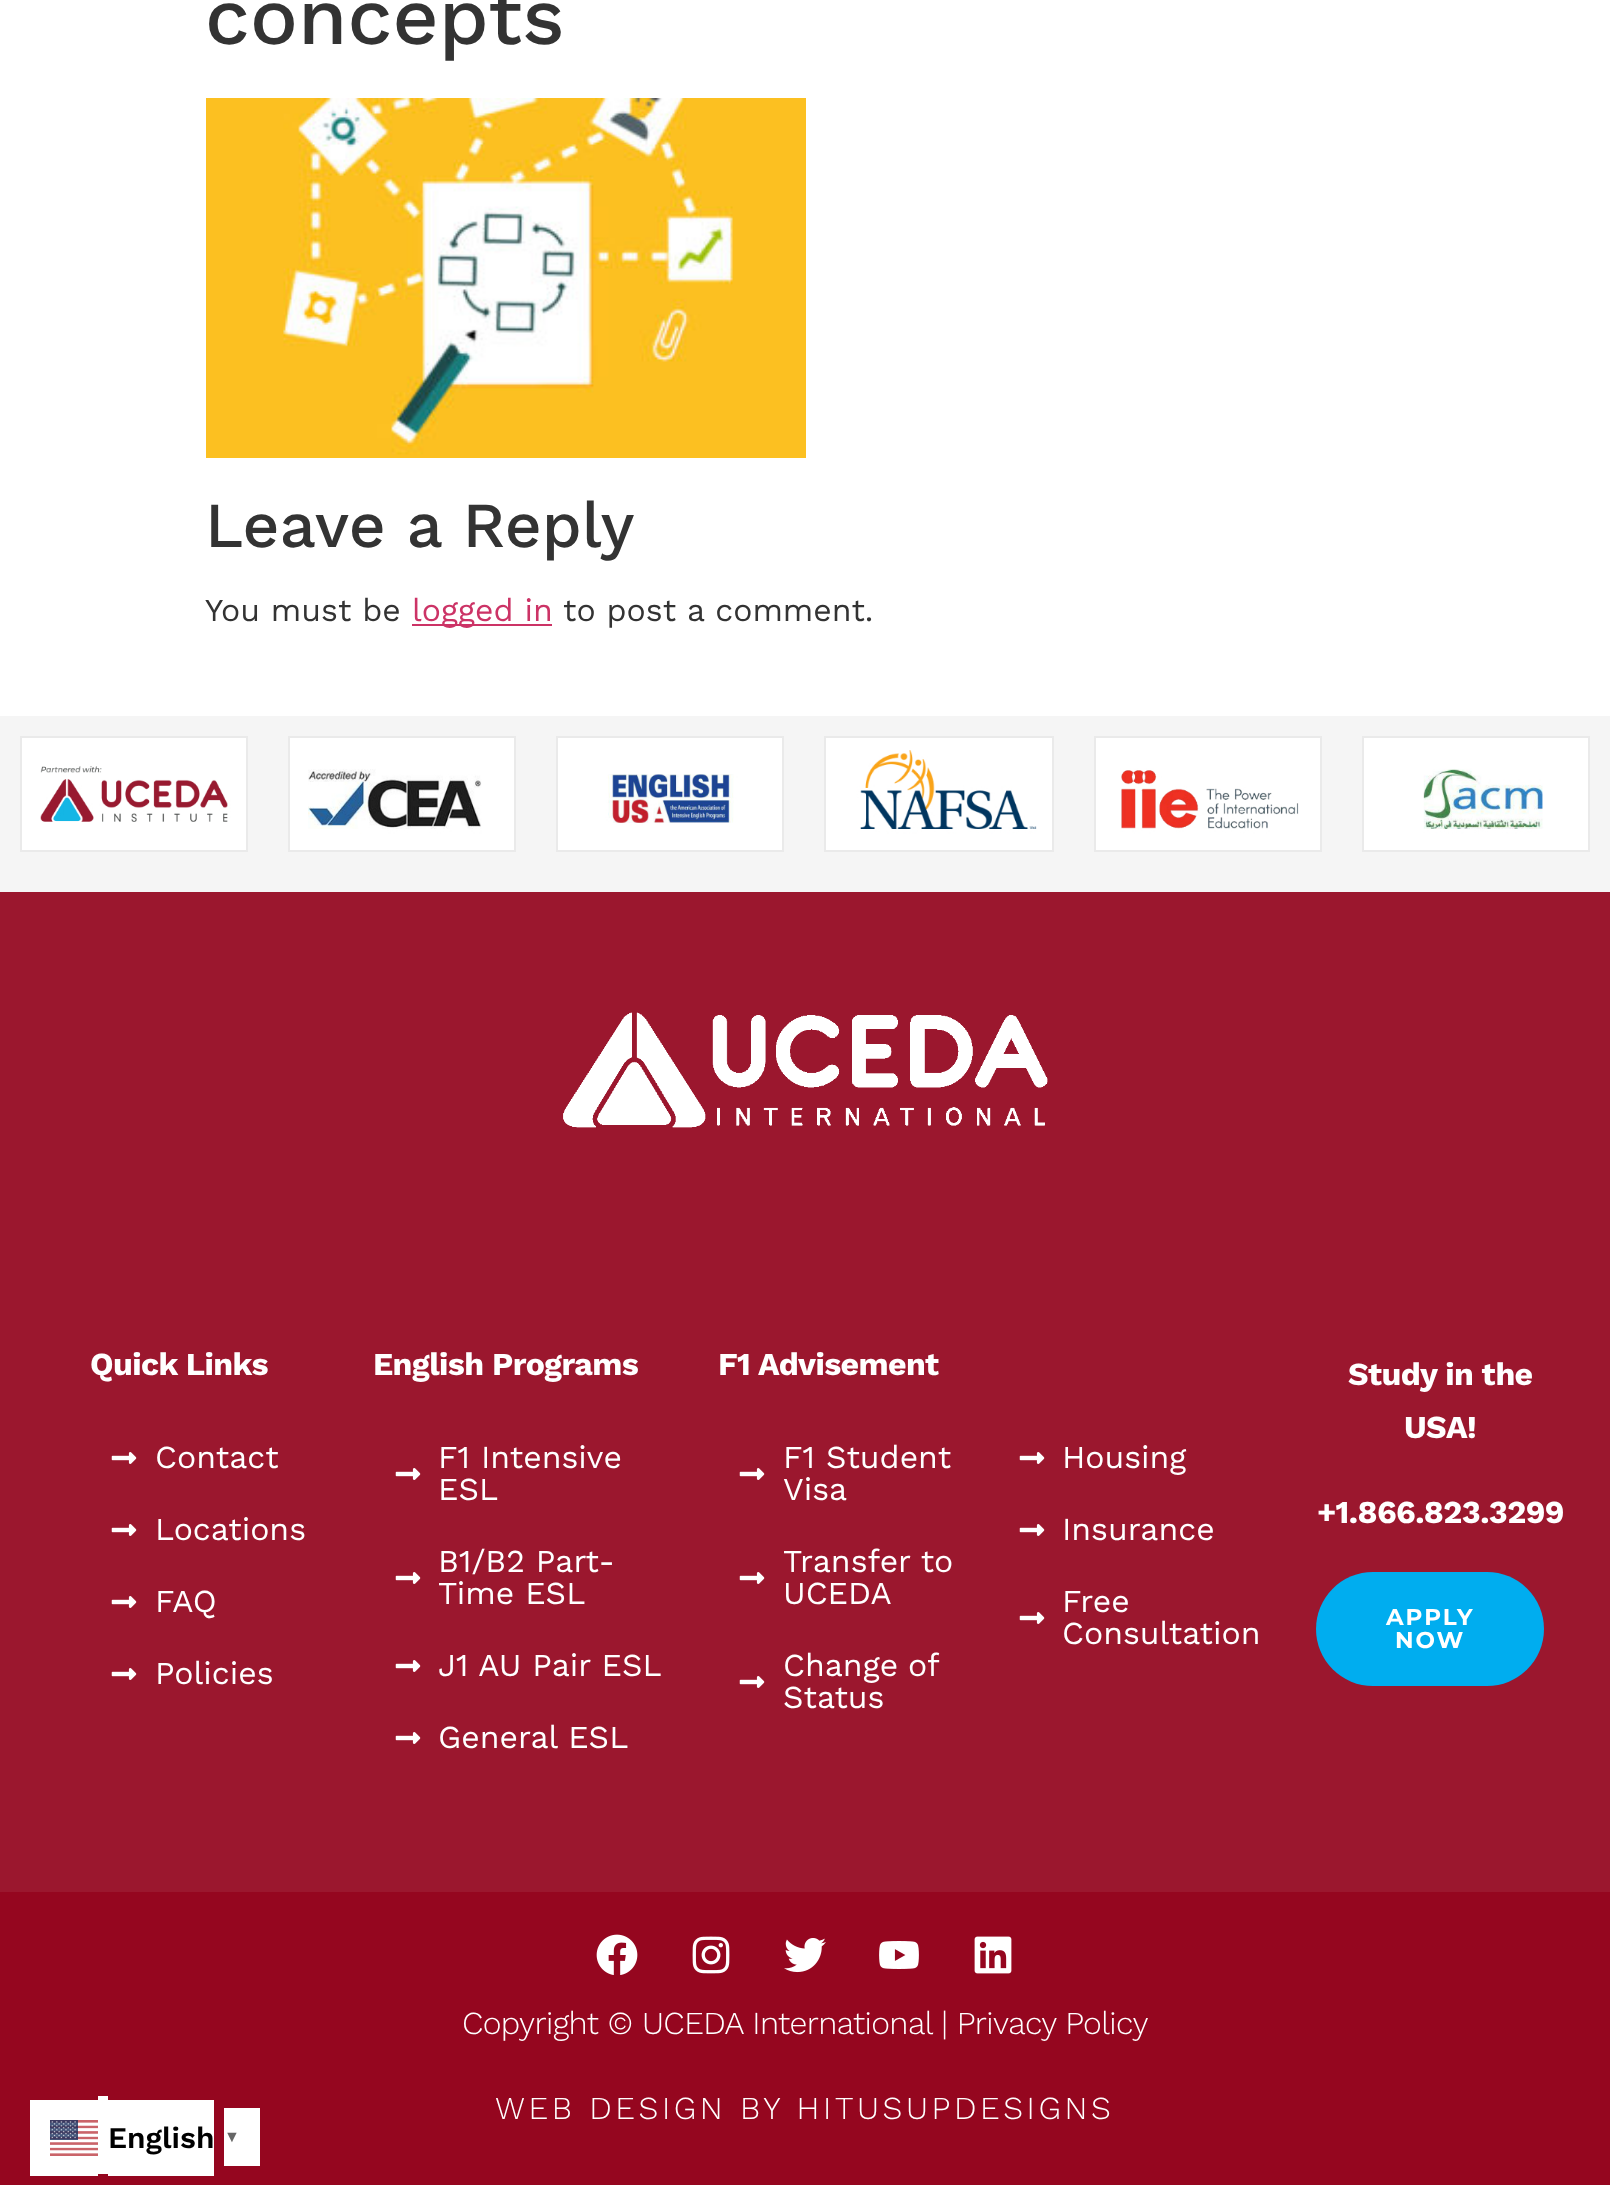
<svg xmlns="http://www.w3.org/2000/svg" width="1610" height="2185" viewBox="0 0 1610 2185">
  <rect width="100%" height="100%" fill="rgb(255,255,255)"/>
  <text x="205" y="44" font-family="Work Sans" font-size="80" font-weight="500" fill="rgb(51,51,51)">concepts</text>
  <image x="206" y="98" width="600" height="360" href="pic1.png"/>
  <text x="205" y="547" font-family="Work Sans" font-size="64" font-weight="500" fill="rgb(51,51,51)">Leave a Reply</text>
  <text x="205" y="621" font-family="Work Sans" font-size="32" fill="rgb(51,51,51)">You must be</text>
  <rect x="412" y="624" width="140" height="2" fill="rgb(204,51,102)"/>
  <text x="412" y="621" font-family="Work Sans" font-size="32" fill="rgb(204,51,102)">logged in</text>
  <text x="563" y="621" font-family="Work Sans" font-size="32" fill="rgb(51,51,51)">to post a comment.</text>
  <rect x="0" y="716" width="1610" height="176" fill="rgb(245,245,245)"/>
  <rect x="21" y="737" width="226" height="114" fill="none" stroke="rgb(234,234,234)" stroke-width="2"/>
  <image x="22" y="738" width="224" height="112" href="pic2.png"/>
  <rect x="289" y="737" width="226" height="114" fill="none" stroke="rgb(234,234,234)" stroke-width="2"/>
  <image x="290" y="738" width="224" height="112" href="pic3.png"/>
  <rect x="557" y="737" width="226" height="114" fill="none" stroke="rgb(234,234,234)" stroke-width="2"/>
  <image x="558" y="738" width="224" height="112" href="pic4.png"/>
  <rect x="825" y="737" width="228" height="114" fill="none" stroke="rgb(234,234,234)" stroke-width="2"/>
  <image x="826" y="738" width="226" height="112" href="pic5.png"/>
  <rect x="1095" y="737" width="226" height="114" fill="none" stroke="rgb(234,234,234)" stroke-width="2"/>
  <image x="1096" y="738" width="224" height="112" href="pic6.png"/>
  <rect x="1363" y="737" width="226" height="114" fill="none" stroke="rgb(234,234,234)" stroke-width="2"/>
  <image x="1364" y="738" width="224" height="112" href="pic7.png"/>
  <rect x="0" y="892" width="1610" height="1000" fill="rgb(155,23,46)"/>
  <image x="563" y="1012" width="485" height="116" href="pic8.png"/>
  <text x="90" y="1375" font-family="Work Sans" font-size="32" font-weight="bold" letter-spacing="-0.6" fill="rgb(255,255,255)">Quick Links</text>
  <image x="111" y="1452" width="26" height="12" href="pic9.png"/>
  <text x="155" y="1468" font-family="Work Sans" font-size="32" fill="rgb(255,255,255)">Contact</text>
  <image x="111" y="1524" width="26" height="12" href="pic9.png"/>
  <text x="155" y="1540" font-family="Work Sans" font-size="32" fill="rgb(255,255,255)">Locations</text>
  <image x="111" y="1596" width="26" height="12" href="pic9.png"/>
  <text x="155" y="1612" font-family="Work Sans" font-size="32" fill="rgb(255,255,255)">FAQ</text>
  <image x="111" y="1668" width="26" height="12" href="pic9.png"/>
  <text x="155" y="1684" font-family="Work Sans" font-size="32" fill="rgb(255,255,255)">Policies</text>
  <text x="373" y="1375" font-family="Work Sans" font-size="32" font-weight="bold" letter-spacing="-0.6" fill="rgb(255,255,255)">English Programs</text>
  <image x="395" y="1468" width="26" height="12" href="pic9.png"/>
  <g font-family="Work Sans" font-size="32" fill="rgb(255,255,255)">
    <text>
      <tspan x="438" y="1468">F1 Intensive</tspan>
      <tspan x="438" y="1500">ESL</tspan>
    </text>
  </g>
  <image x="395" y="1572" width="26" height="12" href="pic9.png"/>
  <g font-family="Work Sans" font-size="32" fill="rgb(255,255,255)">
    <text>
      <tspan x="438" y="1572">B1/B2 Part-</tspan>
      <tspan x="438" y="1604">Time ESL</tspan>
    </text>
  </g>
  <image x="395" y="1660" width="26" height="12" href="pic9.png"/>
  <text x="438" y="1676" font-family="Work Sans" font-size="32" fill="rgb(255,255,255)">J1 AU Pair ESL</text>
  <image x="395" y="1732" width="26" height="12" href="pic9.png"/>
  <text x="438" y="1748" font-family="Work Sans" font-size="32" fill="rgb(255,255,255)">General ESL</text>
  <text x="718" y="1375" font-family="Work Sans" font-size="32" font-weight="bold" letter-spacing="-0.6" fill="rgb(255,255,255)">F1 Advisement</text>
  <image x="739" y="1468" width="26" height="12" href="pic9.png"/>
  <g font-family="Work Sans" font-size="32" fill="rgb(255,255,255)">
    <text>
      <tspan x="783" y="1468">F1 Student</tspan>
      <tspan x="783" y="1500">Visa</tspan>
    </text>
  </g>
  <image x="739" y="1572" width="26" height="12" href="pic9.png"/>
  <g font-family="Work Sans" font-size="32" fill="rgb(255,255,255)">
    <text>
      <tspan x="783" y="1572">Transfer to</tspan>
      <tspan x="783" y="1604">UCEDA</tspan>
    </text>
  </g>
  <image x="739" y="1676" width="26" height="12" href="pic9.png"/>
  <g font-family="Work Sans" font-size="32" fill="rgb(255,255,255)">
    <text>
      <tspan x="783" y="1676" word-spacing="-1">Change of</tspan>
      <tspan x="783" y="1708">Status</tspan>
    </text>
  </g>
  <image x="1019" y="1452" width="26" height="12" href="pic9.png"/>
  <text x="1062" y="1468" font-family="Work Sans" font-size="32" fill="rgb(255,255,255)">Housing</text>
  <image x="1019" y="1524" width="26" height="12" href="pic9.png"/>
  <text x="1062" y="1540" font-family="Work Sans" font-size="32" fill="rgb(255,255,255)">Insurance</text>
  <image x="1019" y="1612" width="26" height="12" href="pic9.png"/>
  <g font-family="Work Sans" font-size="32" fill="rgb(255,255,255)">
    <text>
      <tspan x="1062" y="1612">Free</tspan>
      <tspan x="1062" y="1644">Consultation</tspan>
    </text>
  </g>
  <g font-family="Work Sans" font-size="32" font-weight="bold" letter-spacing="-0.6" fill="rgb(255,255,255)">
    <text x="1348" y="1385">Study in the</text>
    <text x="1404" y="1438">USA!</text>
    <text x="1317" y="1523">+1.866.823.3299</text>
  </g>
  <rect x="1316" y="1572" width="228" height="114" rx="57" fill="rgb(0,173,239)"/>
  <g font-family="Montserrat" font-size="23" font-weight="bold" letter-spacing="2" fill="rgb(255,255,255)">
    <text x="1386" y="1625">APPLY</text>
    <text x="1395" y="1648">NOW</text>
  </g>
  <rect x="0" y="1892" width="1610" height="293" fill="rgb(149,6,31)"/>
  <image x="596" y="1934" width="42" height="41" href="pic10.png"/>
  <image x="692" y="1936" width="38" height="38" href="pic11.png"/>
  <image x="784" y="1938" width="42" height="35" href="pic12.png"/>
  <image x="879" y="1941" width="40" height="28" href="pic13.png"/>
  <image x="974" y="1936" width="38" height="38" href="pic14.png"/>
  <text x="462" y="2034" font-family="Work Sans" font-size="32" font-weight="300" letter-spacing="-0.6" fill="rgb(255,255,255)">Copyright © UCEDA International | Privacy Policy</text>
  <text x="495" y="2119" font-family="Work Sans" font-size="32" font-weight="300" letter-spacing="3.6" fill="rgb(255,255,255)">WEB DESIGN BY HITUSUPDESIGNS</text>
  <rect x="30" y="2100" width="68" height="76" fill="rgb(255,255,255)"/>
  <image x="50" y="2120" width="48" height="36" href="pic15.png"/>
  <rect x="108" y="2100" width="106" height="76" fill="rgb(255,255,255)"/>
  <text x="108" y="2148" font-family="Work Sans" font-size="30" font-weight="600" fill="rgb(0,0,0)">English</text>
  <rect x="98" y="2096" width="10" height="78" fill="rgb(255,255,255)"/>
  <rect x="224" y="2108" width="36" height="58" fill="rgb(255,255,255)"/>
  <text x="224" y="2142" font-family="Liberation Sans" font-size="16" font-weight="bold" fill="rgb(102,102,102)">▼</text>
</svg>
